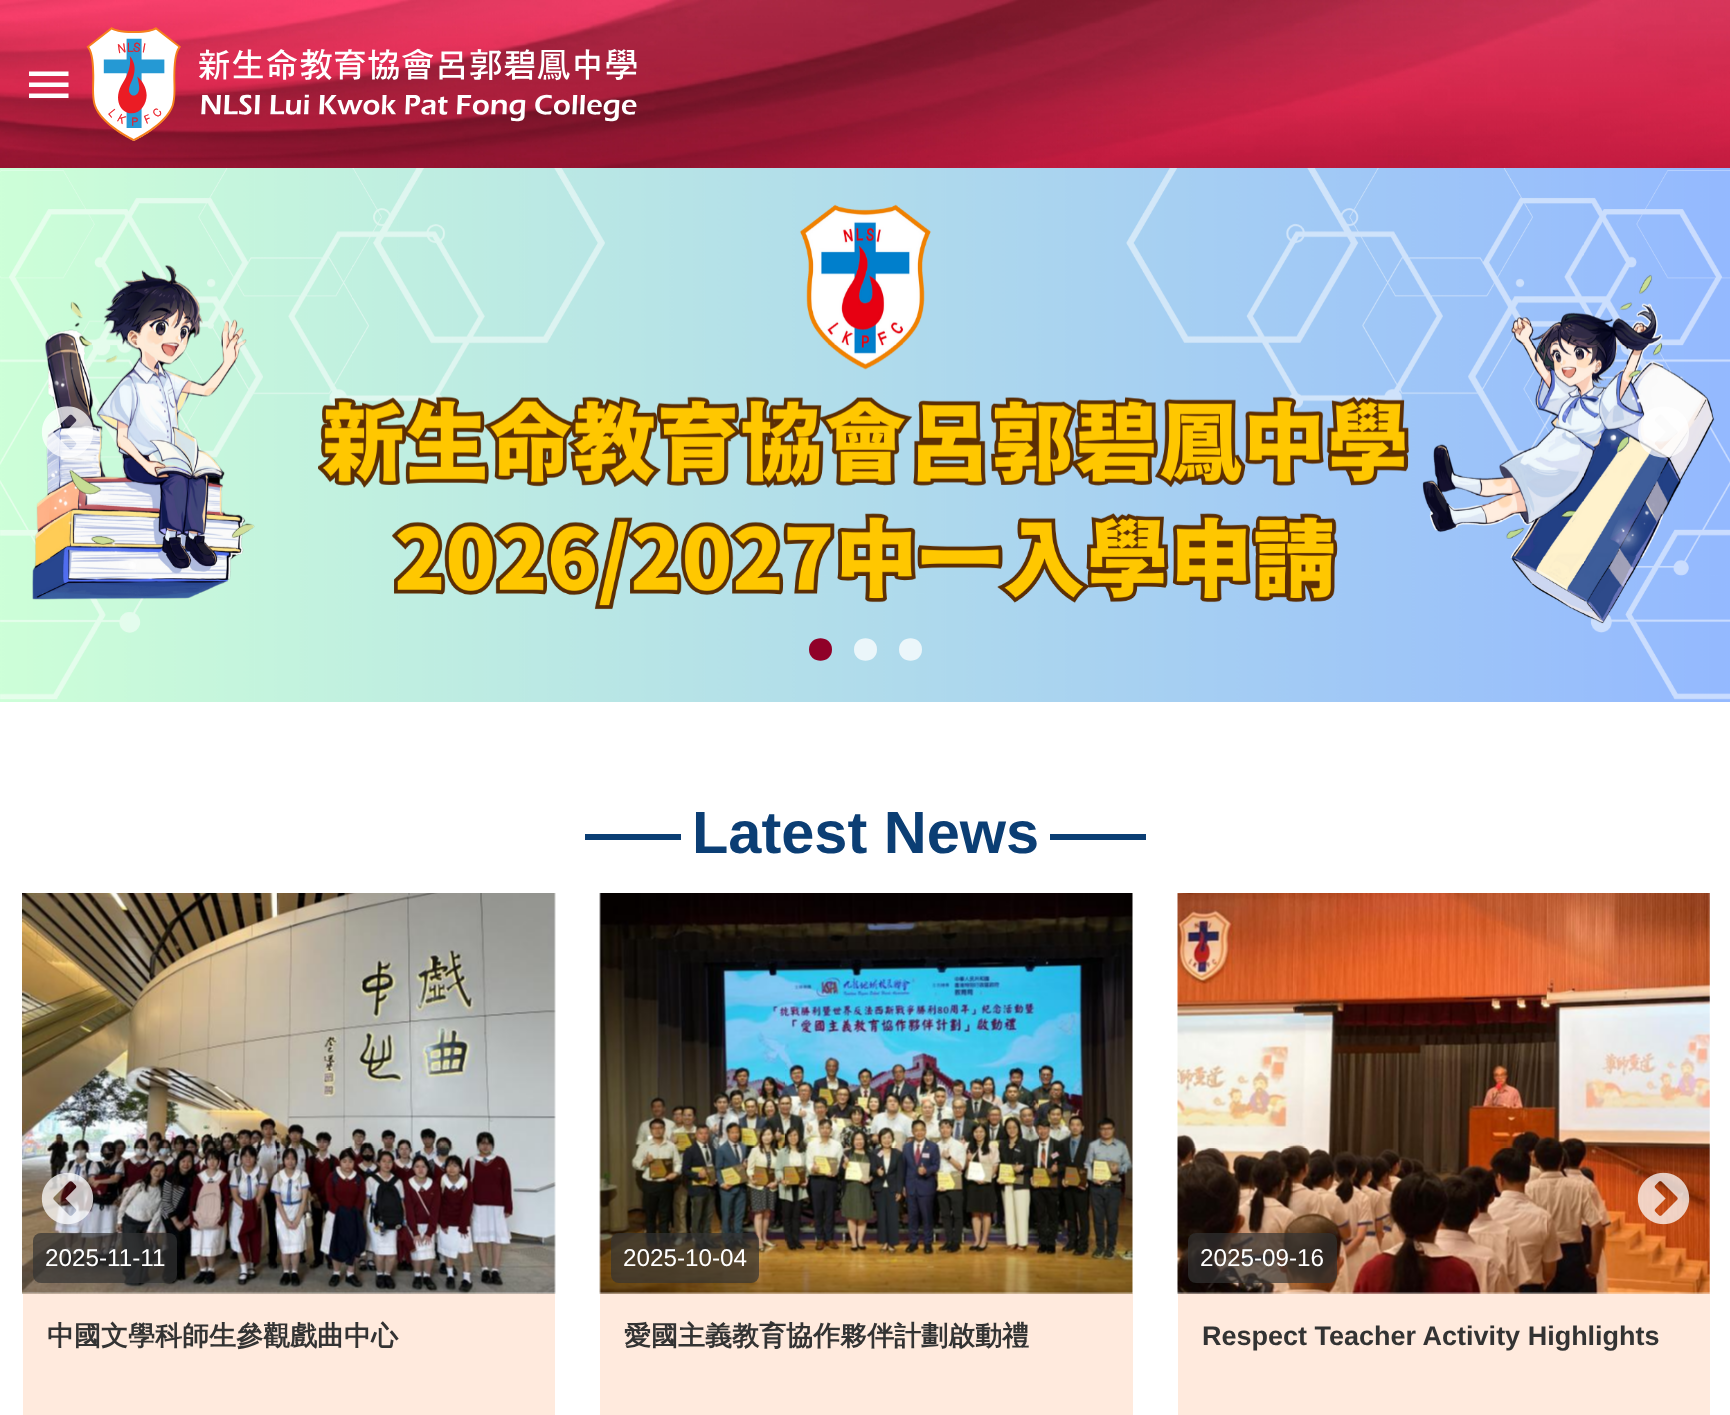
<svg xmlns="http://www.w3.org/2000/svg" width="1730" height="1415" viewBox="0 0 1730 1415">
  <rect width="100%" height="100%" fill="rgb(255,255,255)"/>
  <image x="0" y="0" width="1730" height="168" href="pic1.png"/>
  <path d="M29 71.5H68.5V76H29ZM29 87V82.5H68.5V87ZM29 98V93.5H68.5V98Z" fill="rgb(255,255,255)"/>
  <image x="86" y="27" width="551" height="114" href="pic2.png"/>
  <image x="0" y="168" width="1730" height="534" href="pic3.png"/>
  <image x="41" y="406" width="52" height="52" href="pic4.png"/>
  <path d="M1662 449C1660 451 1658 448 1657 446C1653 443 1655 442 1659 439L1666 432L1657 423C1654 420 1654 420 1658 416C1662 412 1663 417 1667 420L1674 428C1679 432 1679 432 1674 436ZM1689 432C1689 398 1638 398 1638 432C1638 466 1689 466 1689 432Z" fill="rgba(255,255,255,0.75)"/>
  <path d="M832 649.5C832 634.5 809 634.5 809 649.5C809 664.5 832 664.5 832 649.5Z" fill="rgb(144,1,40)"/>
  <path d="M877 649.5C877 634.5 854 634.5 854 649.5C854 664.5 877 664.5 877 649.5Z" fill="rgb(235,246,250)"/>
  <path d="M922 649.5C922 634.5 899 634.5 899 649.5C899 664.5 922 664.5 922 649.5Z" fill="rgb(235,246,250)"/>
  <rect x="585" y="834" width="96" height="6" fill="rgb(11,62,116)"/>
  <text x="692" y="853" font-family="Liberation Sans" font-size="59.5" font-weight="bold" fill="rgb(11,62,116)">Latest News</text>
  <rect x="1050" y="834" width="96" height="6" fill="rgb(11,62,116)"/>
  <rect x="23" y="1293" width="532" height="122" fill="rgb(255,234,221)"/>
  <image x="22" y="893" width="534" height="401" href="pic7.png"/>
  <image x="41" y="1172" width="53" height="53" href="pic5.png"/>
  <rect x="1178" y="1293" width="532" height="122" fill="rgb(255,234,221)"/>
  <image x="1177" y="893" width="533" height="401" href="pic9.png"/>
  <image x="1637" y="1172" width="53" height="53" href="pic6.png"/>
  <rect x="33" y="1233" width="144" height="50" rx="8" fill="rgba(51,51,51,0.69)"/>
  <text x="45" y="1266" font-family="Liberation Sans" font-size="24.25" fill="rgb(255,255,255)">2025-11-11</text>
  <text x="47" y="1345" font-family="WenQuanYi Zen Hei" font-size="27" font-weight="bold" fill="rgb(51,51,51)">中國文學科師生參觀戲曲中心</text>
  <rect x="600" y="1293" width="533" height="122" fill="rgb(255,234,221)"/>
  <image x="599" y="893" width="534" height="401" href="pic8.png"/>
  <rect x="611" y="1233" width="148" height="50" rx="8" fill="rgba(51,51,51,0.69)"/>
  <text x="623" y="1266" font-family="Liberation Sans" font-size="24.25" fill="rgb(255,255,255)">2025-10-04</text>
  <text x="624" y="1345" font-family="WenQuanYi Zen Hei" font-size="27" font-weight="bold" fill="rgb(51,51,51)">愛國主義教育協作夥伴計劃啟動禮</text>
  <rect x="1188" y="1233" width="149" height="50" rx="8" fill="rgba(51,51,51,0.69)"/>
  <text x="1200" y="1266" font-family="Liberation Sans" font-size="24.25" fill="rgb(255,255,255)">2025-09-16</text>
  <text x="1202" y="1345" font-family="Liberation Sans" font-size="27" font-weight="bold" fill="rgb(51,51,51)">Respect Teacher Activity Highlights</text>
</svg>
